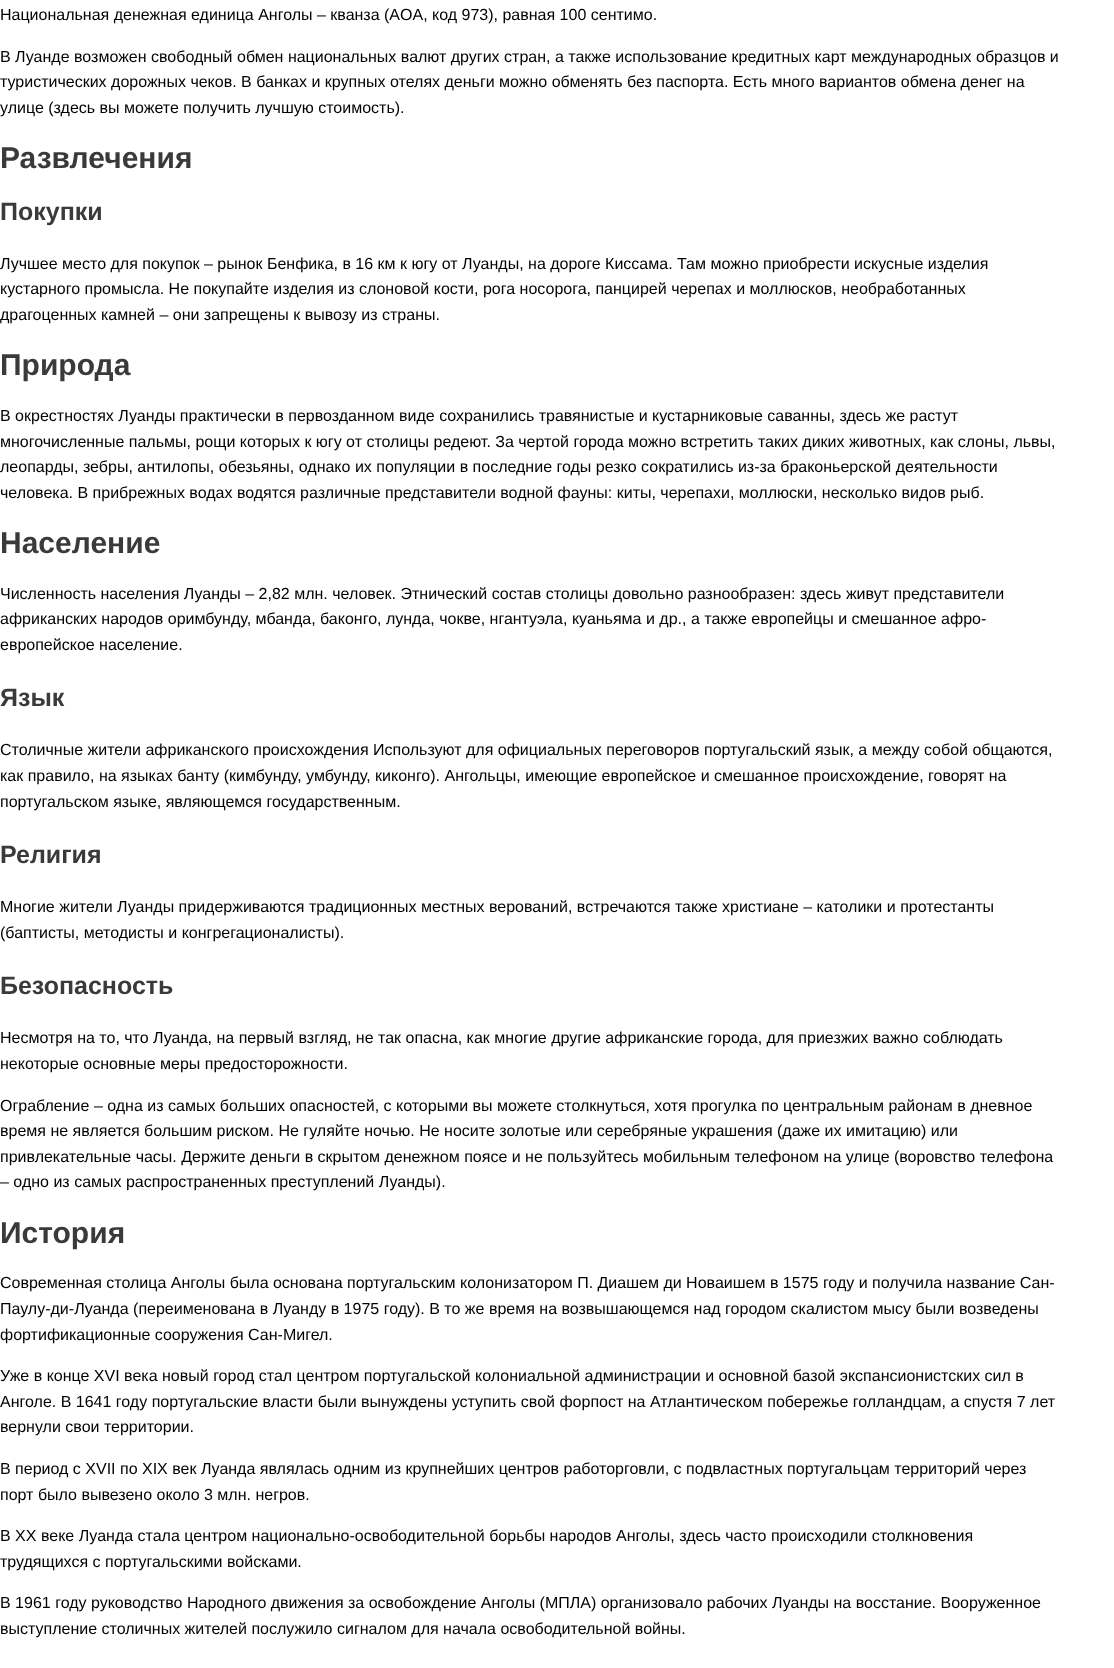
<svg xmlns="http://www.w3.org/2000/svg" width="1114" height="1668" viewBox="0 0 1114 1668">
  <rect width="100%" height="100%" fill="rgb(255,255,255)"/>
  <g font-family="Liberation Sans" font-size="16" fill="rgb(0,0,0)">
    <text x="0" y="20">Национальная денежная единица Анголы – кванза (AOA, код 973), равная 100 сентимо.</text>
    <text>
      <tspan x="0" y="62">В Луанде возможен свободный обмен национальных валют других стран, а также использование кредитных карт международных образцов и</tspan>
      <tspan x="0" y="87">туристических дорожных чеков. В банках и крупных отелях деньги можно обменять без паспорта. Есть много вариантов обмена денег на</tspan>
      <tspan x="0" y="113">улице (здесь вы можете получить лучшую стоимость).</tspan>
    </text>
  </g>
  <text x="0" y="168" font-family="Liberation Sans" font-size="30" font-weight="bold" fill="rgb(58,58,58)">Развлечения</text>
  <text x="0" y="220" font-family="Liberation Sans" font-size="25" font-weight="bold" fill="rgb(58,58,58)">Покупки</text>
  <g font-family="Liberation Sans" font-size="16" fill="rgb(0,0,0)">
    <text>
      <tspan x="0" y="269">Лучшее место для покупок – рынок Бенфика, в 16 км к югу от Луанды, на дороге Киссама. Там можно приобрести искусные изделия</tspan>
      <tspan x="0" y="294">кустарного промысла. Не покупайте изделия из слоновой кости, рога носорога, панцирей черепах и моллюсков, необработанных</tspan>
      <tspan x="0" y="320">драгоценных камней – они запрещены к вывозу из страны.</tspan>
    </text>
  </g>
  <text x="0" y="375" font-family="Liberation Sans" font-size="30" font-weight="bold" fill="rgb(58,58,58)">Природа</text>
  <g font-family="Liberation Sans" font-size="16" fill="rgb(0,0,0)">
    <text>
      <tspan x="0" y="421">В окрестностях Луанды практически в первозданном виде сохранились травянистые и кустарниковые саванны, здесь же растут</tspan>
      <tspan x="0" y="447">многочисленные пальмы, рощи которых к югу от столицы редеют. За чертой города можно встретить таких диких животных, как слоны, львы,</tspan>
      <tspan x="0" y="472">леопарды, зебры, антилопы, обезьяны, однако их популяции в последние годы резко сократились из-за браконьерской деятельности</tspan>
      <tspan x="0" y="498">человека. В прибрежных водах водятся различные представители водной фауны: киты, черепахи, моллюски, несколько видов рыб.</tspan>
    </text>
  </g>
  <text x="0" y="553" font-family="Liberation Sans" font-size="30" font-weight="bold" fill="rgb(58,58,58)">Население</text>
  <g font-family="Liberation Sans" font-size="16" fill="rgb(0,0,0)">
    <text>
      <tspan x="0" y="599">Численность населения Луанды – 2,82 млн. человек. Этнический состав столицы довольно разнообразен: здесь живут представители</tspan>
      <tspan x="0" y="624">африканских народов оримбунду, мбанда, баконго, лунда, чокве, нгантуэла, куаньяма и др., а также европейцы и смешанное афро-</tspan>
      <tspan x="0" y="650">европейское население.</tspan>
    </text>
  </g>
  <text x="0" y="706" font-family="Liberation Sans" font-size="25" font-weight="bold" fill="rgb(58,58,58)">Язык</text>
  <g font-family="Liberation Sans" font-size="16" fill="rgb(0,0,0)">
    <text>
      <tspan x="0" y="755">Столичные жители африканского происхождения Используют для официальных переговоров португальский язык, а между собой общаются,</tspan>
      <tspan x="0" y="781">как правило, на языках банту (кимбунду, умбунду, киконго). Ангольцы, имеющие европейское и смешанное происхождение, говорят на</tspan>
      <tspan x="0" y="807">португальском языке, являющемся государственным.</tspan>
    </text>
  </g>
  <text x="0" y="863" font-family="Liberation Sans" font-size="25" font-weight="bold" fill="rgb(58,58,58)">Религия</text>
  <g font-family="Liberation Sans" font-size="16" fill="rgb(0,0,0)">
    <text>
      <tspan x="0" y="912">Многие жители Луанды придерживаются традиционных местных верований, встречаются также христиане – католики и протестанты</tspan>
      <tspan x="0" y="938">(баптисты, методисты и конгрегационалисты).</tspan>
    </text>
  </g>
  <text x="0" y="994" font-family="Liberation Sans" font-size="25" font-weight="bold" fill="rgb(58,58,58)">Безопасность</text>
  <g font-family="Liberation Sans" font-size="16" fill="rgb(0,0,0)">
    <text>
      <tspan x="0" y="1043">Несмотря на то, что Луанда, на первый взгляд, не так опасна, как многие другие африканские города, для приезжих важно соблюдать</tspan>
      <tspan x="0" y="1069">некоторые основные меры предосторожности.</tspan>
    </text>
    <text>
      <tspan x="0" y="1111">Ограбление – одна из самых больших опасностей, с которыми вы можете столкнуться, хотя прогулка по центральным районам в дневное</tspan>
      <tspan x="0" y="1136">время не является большим риском. Не гуляйте ночью. Не носите золотые или серебряные украшения (даже их имитацию) или</tspan>
      <tspan x="0" y="1162">привлекательные часы. Держите деньги в скрытом денежном поясе и не пользуйтесь мобильным телефоном на улице (воровство телефона</tspan>
      <tspan x="0" y="1187">– одно из самых распространенных преступлений Луанды).</tspan>
    </text>
  </g>
  <text x="0" y="1243" font-family="Liberation Sans" font-size="30" font-weight="bold" fill="rgb(58,58,58)">История</text>
  <g font-family="Liberation Sans" font-size="16" fill="rgb(0,0,0)">
    <text>
      <tspan x="0" y="1288">Современная столица Анголы была основана португальским колонизатором П. Диашем ди Новаишем в 1575 году и получила название Сан-</tspan>
      <tspan x="0" y="1314">Паулу-ди-Луанда (переименована в Луанду в 1975 году). В то же время на возвышающемся над городом скалистом мысу были возведены</tspan>
      <tspan x="0" y="1340">фортификационные сооружения Сан-Мигел.</tspan>
    </text>
    <text>
      <tspan x="0" y="1381">Уже в конце XVI века новый город стал центром португальской колониальной администрации и основной базой экспансионистских сил в</tspan>
      <tspan x="0" y="1407">Анголе. В 1641 году португальские власти были вынуждены уступить свой форпост на Атлантическом побережье голландцам, а спустя 7 лет</tspan>
      <tspan x="0" y="1432">вернули свои территории.</tspan>
    </text>
    <text>
      <tspan x="0" y="1474">В период с XVII по XIX век Луанда являлась одним из крупнейших центров работорговли, с подвластных португальцам территорий через</tspan>
      <tspan x="0" y="1500">порт было вывезено около 3 млн. негров.</tspan>
    </text>
    <text>
      <tspan x="0" y="1541">В XX веке Луанда стала центром национально-освободительной борьбы народов Анголы, здесь часто происходили столкновения</tspan>
      <tspan x="0" y="1567">трудящихся с португальскими войсками.</tspan>
    </text>
    <text>
      <tspan x="0" y="1608">В 1961 году руководство Народного движения за освобождение Анголы (МПЛА) организовало рабочих Луанды на восстание. Вооруженное</tspan>
      <tspan x="0" y="1634">выступление столичных жителей послужило сигналом для начала освободительной войны.</tspan>
    </text>
  </g>
</svg>
